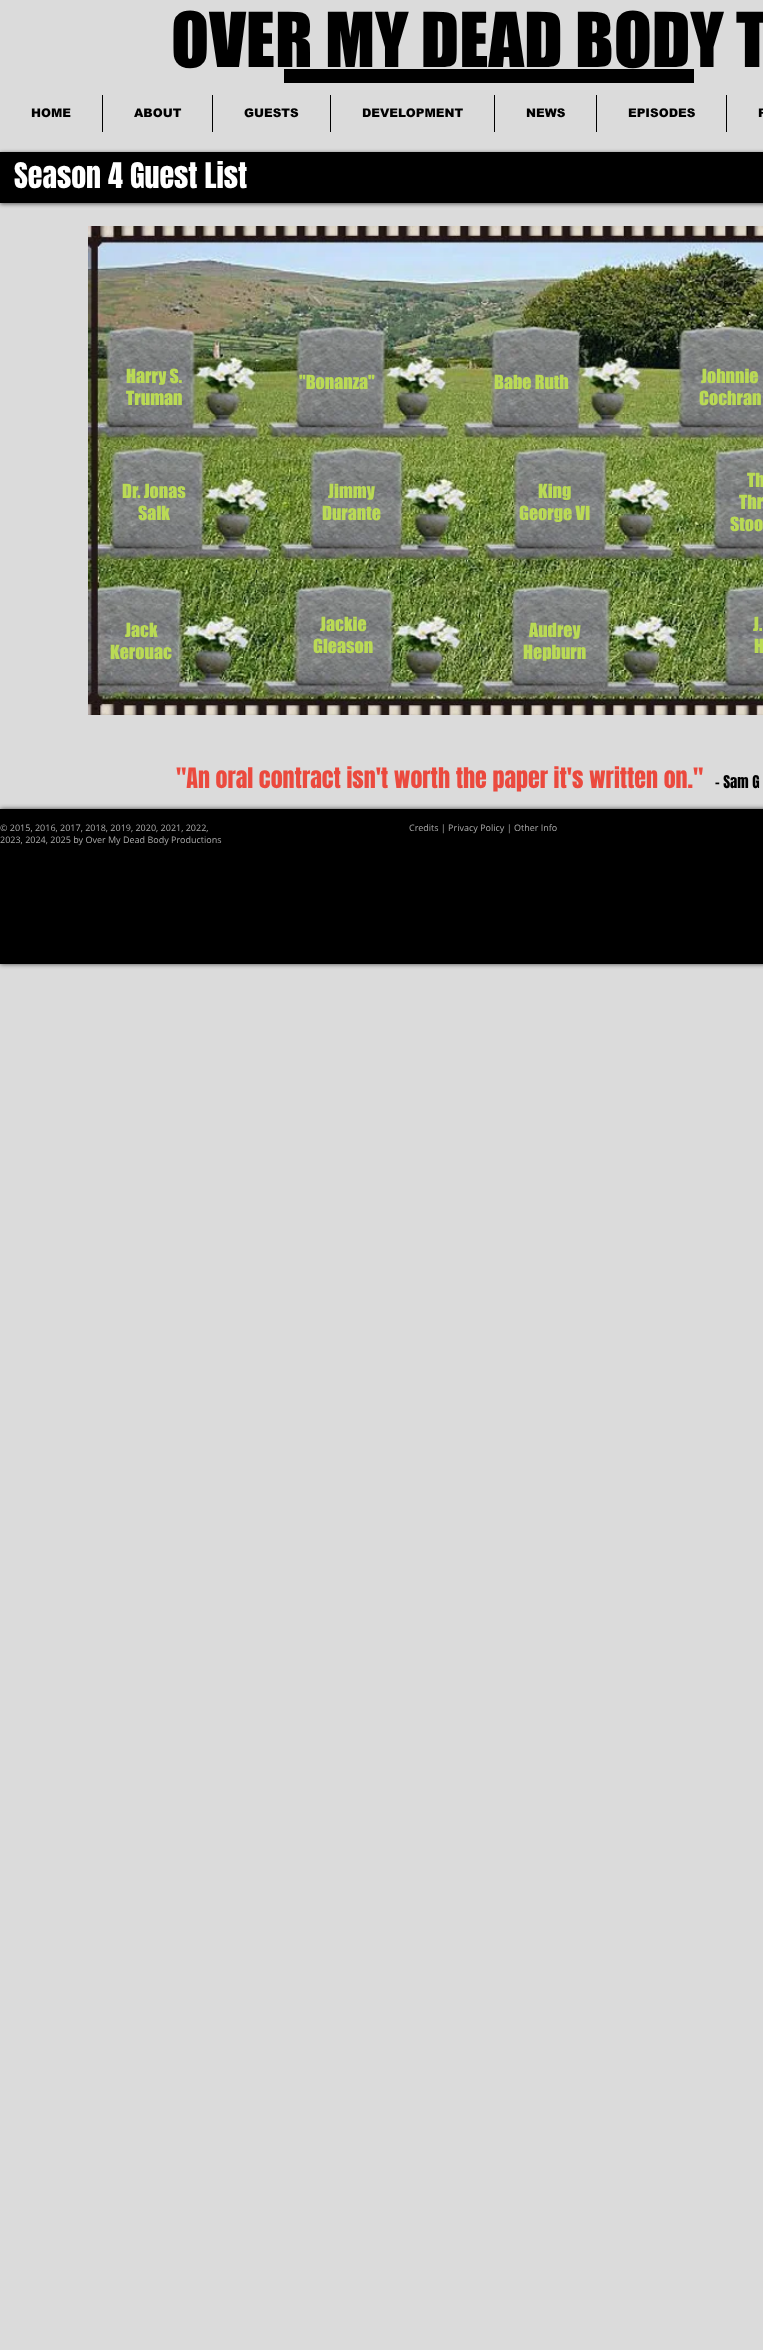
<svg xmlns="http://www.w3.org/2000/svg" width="763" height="2350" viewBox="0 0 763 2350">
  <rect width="100%" height="100%" fill="rgb(219,219,219)"/>
  <text x="171" y="67" font-family="'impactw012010'" font-size="70" fill="rgb(0,0,0)">OVER MY DEAD BODY T</text>
  <rect x="284" y="69" width="410" height="14" fill="rgb(0,0,0)"/>
  <text x="31" y="117" font-family="arial" font-size="12" font-weight="900" fill="rgb(0,0,0)">HOME</text>
  <rect x="102" y="95" width="1" height="37" fill="rgb(0,0,0)"/>
  <text x="134" y="117" font-family="arial" font-size="12" font-weight="900" fill="rgb(0,0,0)">ABOUT</text>
  <rect x="212" y="95" width="1" height="37" fill="rgb(0,0,0)"/>
  <text x="244" y="117" font-family="arial" font-size="12" font-weight="900" fill="rgb(0,0,0)">GUESTS</text>
  <rect x="330" y="95" width="1" height="37" fill="rgb(0,0,0)"/>
  <text x="362" y="117" font-family="arial" font-size="12" font-weight="900" fill="rgb(0,0,0)">DEVELOPMENT</text>
  <rect x="494" y="95" width="1" height="37" fill="rgb(0,0,0)"/>
  <text x="526" y="117" font-family="arial" font-size="12" font-weight="900" fill="rgb(0,0,0)">NEWS</text>
  <rect x="596" y="95" width="1" height="37" fill="rgb(0,0,0)"/>
  <text x="628" y="117" font-family="arial" font-size="12" font-weight="900" fill="rgb(0,0,0)">EPISODES</text>
  <rect x="726" y="95" width="1" height="37" fill="rgb(0,0,0)"/>
  <text x="758" y="117" font-family="arial" font-size="12" font-weight="900" fill="rgb(0,0,0)">P</text>
  <rect x="0" y="153" width="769" height="51" fill="rgba(0,0,0,0.6)" filter="blur(2px)"/>
  <rect x="0" y="152" width="763" height="51" fill="rgb(0,0,0)"/>
  <text x="14" y="188" font-family="Anton" font-size="30" fill="rgb(255,255,255)">Season 4 Guest List</text>
  <image x="88" y="226" width="675" height="489" href="pic1.png"/>
  <g font-family="'impactw012010'" font-size="18" fill="rgb(186,218,85)">
    <text>
      <tspan x="126" y="383">Harry S.</tspan>
      <tspan x="126" y="405">Truman</tspan>
    </text>
    <text x="299" y="389">"Bonanza"</text>
    <text x="494" y="389">Babe Ruth</text>
    <text x="701" y="383">Johnnie</text>
    <text x="699" y="405">Cochran</text>
    <text x="122" y="498">Dr. Jonas</text>
    <text x="138" y="520">Salk</text>
    <text x="328" y="498">Jimmy</text>
    <text x="322" y="520">Durante</text>
    <text x="538" y="498">King</text>
    <text x="519" y="520">George VI</text>
    <text x="747" y="487">Th</text>
    <text x="739" y="509">Thr</text>
    <text x="730" y="531">Stoo</text>
    <text x="125" y="637">Jack</text>
    <text x="110" y="659">Kerouac</text>
    <text x="320" y="631">Jackie</text>
    <text x="313" y="653">Gleason</text>
    <text x="529" y="637">Audrey</text>
    <text x="523" y="659">Hepburn</text>
    <text x="753" y="631">J.</text>
    <text x="754" y="653">H</text>
  </g>
  <text x="176" y="788" font-family="Anton" font-size="24" fill="rgb(235,74,62)">"An oral contract isn't worth the paper it's written on."</text>
  <text x="715" y="788" font-family="Anton" font-size="15" fill="rgb(0,0,0)">- Sam G</text>
  <rect x="0" y="809" width="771" height="155" fill="rgba(0,0,0,0.7)" filter="blur(2.5px)"/>
  <rect x="0" y="809" width="763" height="155" fill="rgb(0,0,0)"/>
  <g font-family="Open Sans" font-size="9" fill="rgb(169,169,169)">
    <text>
      <tspan x="0" y="831">© 2015, 2016, 2017, 2018, 2019, 2020, 2021, 2022,</tspan>
      <tspan x="0" y="843">2023, 2024, 2025 by Over My Dead Body Productions</tspan>
    </text>
    <text x="409" y="831">Credits | Privacy Policy | Other Info</text>
  </g>
</svg>
